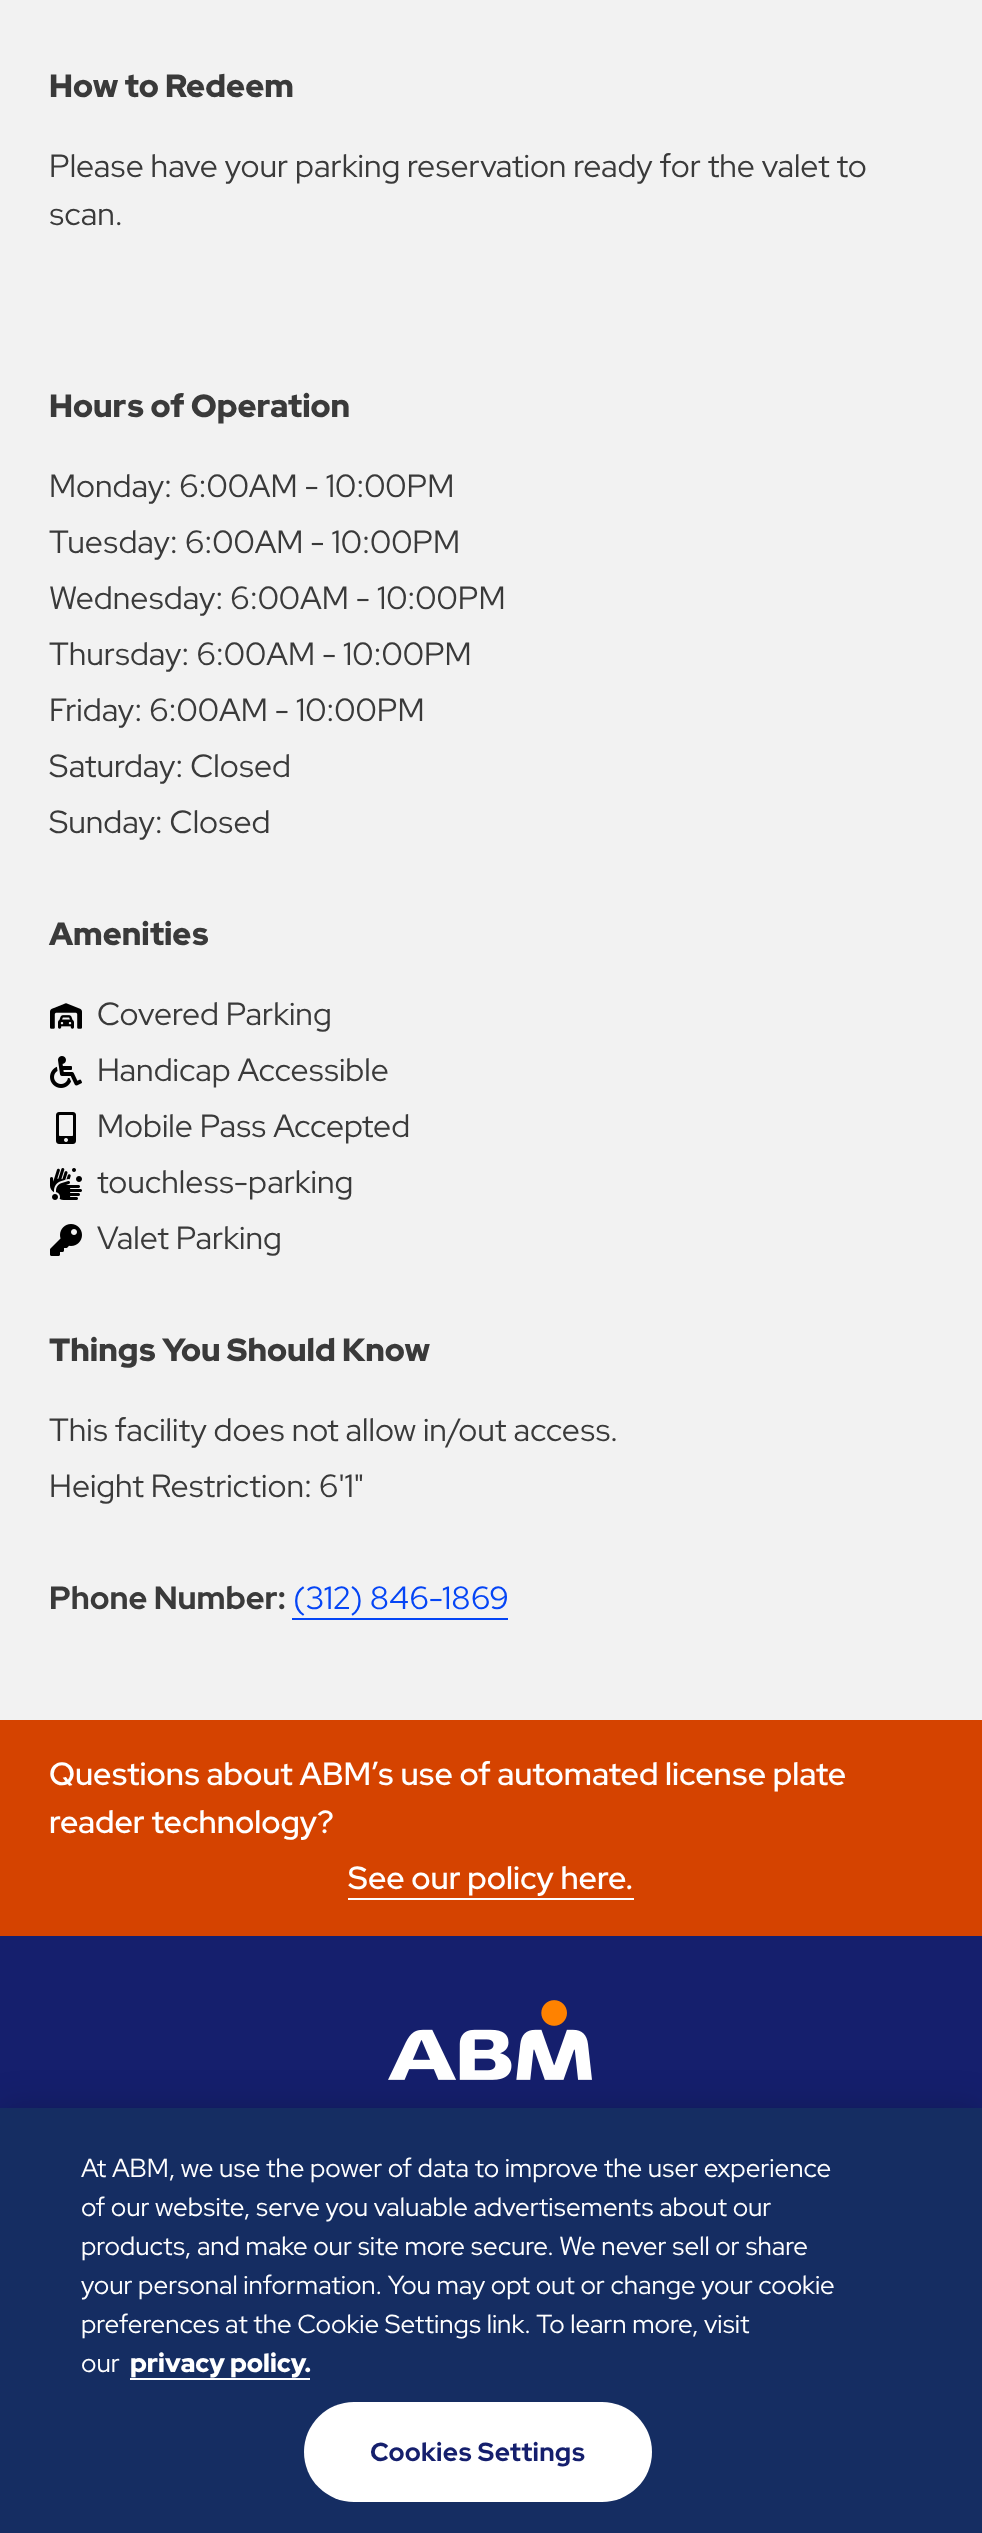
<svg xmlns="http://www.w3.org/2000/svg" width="982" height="2533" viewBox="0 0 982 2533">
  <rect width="100%" height="100%" fill="rgb(21,31,109)"/>
  <rect x="0" y="0" width="982" height="1720" fill="rgb(242,242,242)"/>
  <text x="49" y="97" font-family="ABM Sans" font-size="32" font-weight="bold" fill="rgb(58,58,58)">How to Redeem</text>
  <g font-family="ABM Sans" font-size="32" fill="rgb(58,58,58)">
    <text>
      <tspan x="49" y="177">Please have your parking reservation ready for the valet to</tspan>
      <tspan x="49" y="225">scan.</tspan>
    </text>
  </g>
  <text x="49" y="417" font-family="ABM Sans" font-size="32" font-weight="bold" fill="rgb(58,58,58)">Hours of Operation</text>
  <g font-family="ABM Sans" font-size="32" fill="rgb(58,58,58)">
    <text>
      <tspan x="49" y="497">Monday: 6:00AM - 10:00PM</tspan>
      <tspan x="49" y="553">Tuesday: 6:00AM - 10:00PM</tspan>
      <tspan x="49" y="609">Wednesday: 6:00AM - 10:00PM</tspan>
      <tspan x="49" y="665">Thursday: 6:00AM - 10:00PM</tspan>
      <tspan x="49" y="721">Friday: 6:00AM - 10:00PM</tspan>
      <tspan x="49" y="777">Saturday: Closed</tspan>
      <tspan x="49" y="833">Sunday: Closed</tspan>
    </text>
  </g>
  <text x="49" y="945" font-family="ABM Sans" font-size="32" font-weight="bold" fill="rgb(58,58,58)">Amenities</text>
  <image x="50" y="1003" width="32" height="26" href="pic1.png"/>
  <text x="97" y="1025" font-family="ABM Sans" font-size="32" fill="rgb(58,58,58)">Covered Parking</text>
  <image x="50" y="1056" width="32" height="32" href="pic2.png"/>
  <text x="97" y="1081" font-family="ABM Sans" font-size="32" fill="rgb(58,58,58)">Handicap Accessible</text>
  <image x="56" y="1112" width="20" height="32" href="pic3.png"/>
  <text x="97" y="1137" font-family="ABM Sans" font-size="32" fill="rgb(58,58,58)">Mobile Pass Accepted</text>
  <image x="50" y="1168" width="32" height="32" href="pic4.png"/>
  <text x="97" y="1193" font-family="ABM Sans" font-size="32" fill="rgb(58,58,58)">touchless-parking</text>
  <image x="50" y="1224" width="32" height="32" href="pic5.png"/>
  <text x="97" y="1249" font-family="ABM Sans" font-size="32" fill="rgb(58,58,58)">Valet Parking</text>
  <text x="49" y="1361" font-family="ABM Sans" font-size="32" font-weight="bold" fill="rgb(58,58,58)">Things You Should Know</text>
  <g font-family="ABM Sans" font-size="32" fill="rgb(58,58,58)">
    <text>
      <tspan x="49" y="1441">This facility does not allow in/out access.</tspan>
      <tspan x="49" y="1497">Height Restriction: 6'1"</tspan>
    </text>
  </g>
  <text x="49" y="1609" font-family="ABM Sans" font-size="32" font-weight="600" fill="rgb(58,58,58)">Phone Number:</text>
  <text x="293" y="1609" font-family="ABM Sans" font-size="32" fill="rgb(5,69,245)">(312) 846-1869</text>
  <rect x="292" y="1618" width="216" height="2" fill="rgb(5,69,245)"/>
  <rect x="0" y="1720" width="982" height="216" fill="rgb(213,67,0)"/>
  <g font-family="ABM Sans" font-size="32" font-weight="500" fill="rgb(255,255,255)">
    <text>
      <tspan x="49" y="1785">Questions about ABM’s use of automated license plate</tspan>
      <tspan x="49" y="1833">reader technology?</tspan>
    </text>
    <text x="348" y="1889">See our policy here.</text>
  </g>
  <rect x="348" y="1898" width="286" height="2" fill="rgb(255,255,255)"/>
  <image x="388" y="2000" width="204" height="80" href="pic6.png"/>
  <rect x="0" y="2108" width="982" height="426" fill="rgba(0,0,0,0.2)" filter="blur(18px)"/>
  <rect x="0" y="2108" width="982" height="425" fill="rgb(21,45,98)"/>
  <g font-family="ABM Sans" font-size="26" fill="rgb(255,255,255)">
    <text>
      <tspan x="81" y="2177">At ABM, we use the power of data to improve the user experience</tspan>
      <tspan x="81" y="2216">of our website, serve you valuable advertisements about our</tspan>
      <tspan x="81" y="2255">products, and make our site more secure. We never sell or share</tspan>
      <tspan x="81" y="2294">your personal information. You may opt out or change your cookie</tspan>
      <tspan x="81" y="2333">preferences at the Cookie Settings link. To learn more, visit</tspan>
      <tspan x="81" y="2372">our</tspan>
    </text>
  </g>
  <text x="130" y="2372" font-family="ABM Sans" font-size="26" font-weight="bold" fill="rgb(255,255,255)">privacy policy.</text>
  <rect x="130" y="2378" width="180" height="2" fill="rgb(255,255,255)"/>
  <rect x="304" y="2402" width="348" height="100" rx="50" fill="rgb(255,255,255)"/>
  <text x="370" y="2461" font-family="ABM Sans" font-size="26" font-weight="600" letter-spacing="0.25" fill="rgb(21,31,109)">Cookies Settings</text>
</svg>
